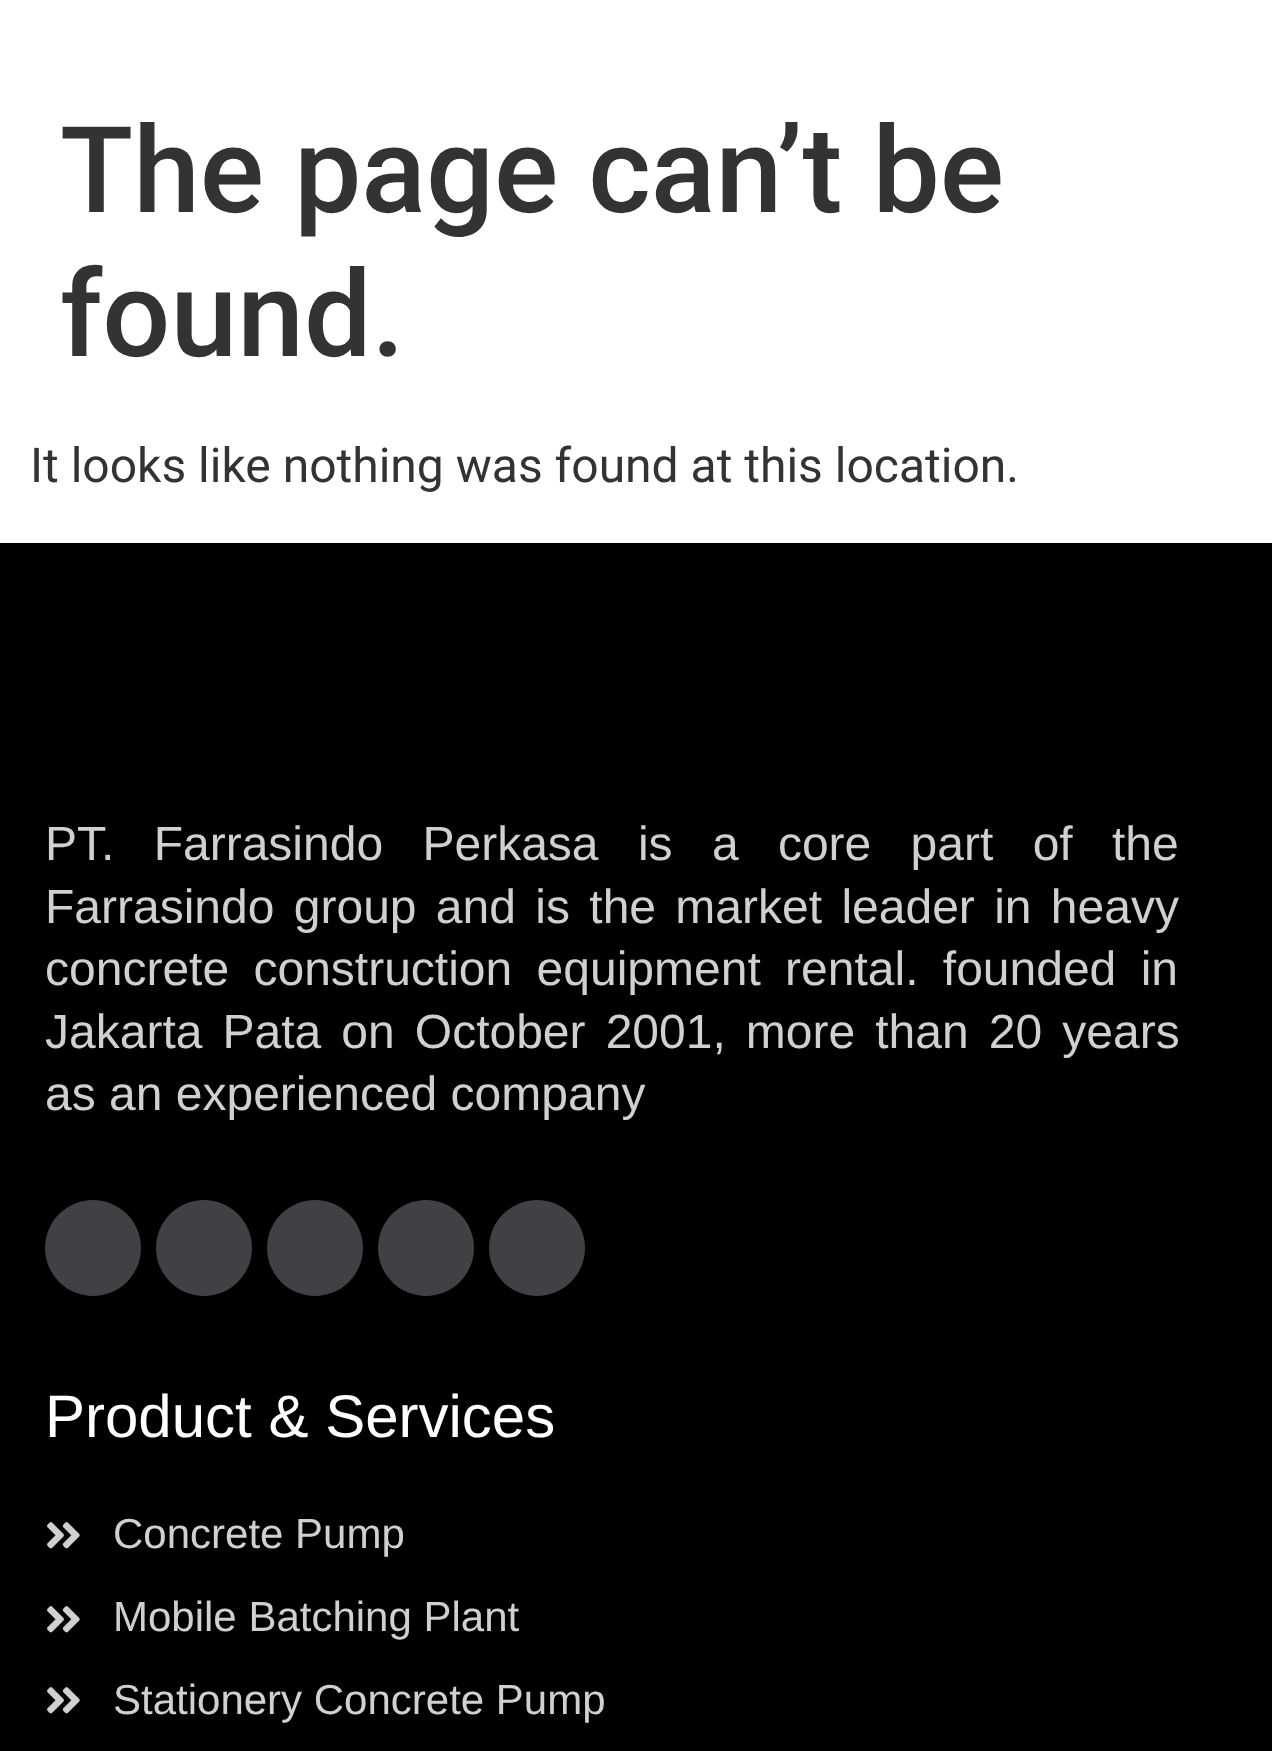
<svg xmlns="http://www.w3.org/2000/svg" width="1272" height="1751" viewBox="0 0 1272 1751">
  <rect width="100%" height="100%" fill="rgb(255,255,255)"/>
  <g font-family="Roboto" font-size="120" font-weight="500" fill="rgb(51,51,51)">
    <text>
      <tspan x="60" y="212">The page can’t be</tspan>
      <tspan x="60" y="356">found.</tspan>
    </text>
  </g>
  <text x="30" y="482" font-family="Roboto" font-size="48" fill="rgb(51,51,51)">It looks like nothing was found at this location.</text>
  <rect x="0" y="543" width="1272" height="1208" fill="rgb(0,0,0)"/>
  <g font-family="Liberation Sans" font-size="48" fill="rgb(207,208,208)">
    <text>
      <tspan x="45" y="860" word-spacing="26">PT. Farrasindo Perkasa is a core part of the</tspan>
      <tspan x="45" y="923" word-spacing="6">Farrasindo group and is the market leader in heavy</tspan>
      <tspan x="45" y="985" word-spacing="11">concrete construction equipment rental. founded in</tspan>
      <tspan x="45" y="1048" word-spacing="6.75">Jakarta Pata on October 2001, more than 20 years</tspan>
      <tspan x="45" y="1110">as an experienced company</tspan>
    </text>
  </g>
  <circle cx="93" cy="1248" r="48" fill="rgb(63,65,68)"/>
  <circle cx="204" cy="1248" r="48" fill="rgb(63,65,68)"/>
  <circle cx="315" cy="1248" r="48" fill="rgb(63,65,68)"/>
  <circle cx="426" cy="1248" r="48" fill="rgb(63,65,68)"/>
  <circle cx="537" cy="1248" r="48" fill="rgb(63,65,68)"/>
  <text x="45" y="1437" font-family="Liberation Sans" font-size="60" fill="rgb(255,255,255)">Product &amp; Services</text>
  <image x="47" y="1522" width="33" height="27" href="pic1.png"/>
  <text x="113" y="1548" font-family="Liberation Sans" font-size="42" fill="rgb(207,208,208)">Concrete Pump</text>
  <image x="47" y="1606" width="33" height="27" href="pic1.png"/>
  <text x="113" y="1631" font-family="Liberation Sans" font-size="42" fill="rgb(207,208,208)">Mobile Batching Plant</text>
  <image x="47" y="1687" width="33" height="27" href="pic1.png"/>
  <text x="113" y="1714" font-family="Liberation Sans" font-size="42" fill="rgb(207,208,208)">Stationery Concrete Pump</text>
</svg>
